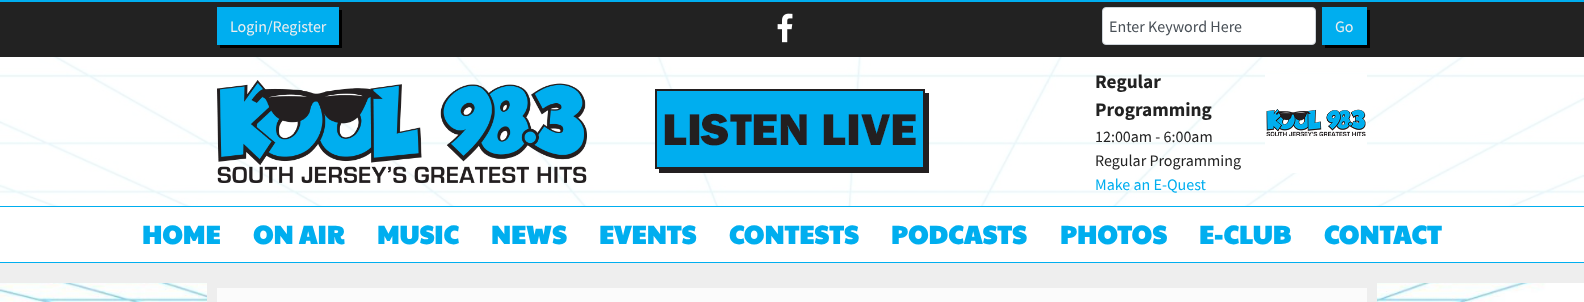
<svg xmlns="http://www.w3.org/2000/svg" width="1584" height="302" viewBox="0 0 1584 302">
  <rect width="100%" height="100%" fill="rgb(255,255,255)"/>
  <image x="0" y="57" width="1584" height="245" href="pic1.png"/>
  <rect x="0" y="2" width="1584" height="55" fill="rgb(34,34,34)"/>
  <rect x="0" y="0" width="1584" height="2" fill="rgb(0,174,239)"/>
  <path d="M220 45V48H342V10H339V45Z" fill="rgb(0,0,0)"/>
  <rect x="217" y="7" width="122" height="38" fill="rgb(0,174,239)"/>
  <text x="230" y="32" font-family="Source Sans Pro" font-size="16" fill="rgb(238,238,238)">Login/Register</text>
  <image x="777" y="13" width="16" height="30" href="pic2.png"/>
  <rect x="1102.5" y="7.5" width="213" height="37" rx="3.5" fill="rgb(255,255,255)" stroke="rgb(206,212,218)"/>
  <text x="1109" y="32" font-family="Source Sans Pro" font-size="16" fill="rgb(73,80,87)">Enter Keyword Here</text>
  <path d="M1325 45V48H1370V10H1367V45Z" fill="rgb(0,0,0)"/>
  <rect x="1322" y="7" width="45" height="38" fill="rgb(0,174,239)"/>
  <text x="1335" y="32" font-family="Source Sans Pro" font-size="16" fill="rgb(238,238,238)">Go</text>
  <rect x="0" y="57" width="1584" height="149" fill="rgba(255,255,255,0.8)"/>
  <image x="217" y="80" width="370" height="103" href="pic3.png"/>
  <image x="655" y="89" width="274" height="84" href="pic4.png"/>
  <g font-family="Source Sans Pro" font-size="19.25" font-weight="bold" fill="rgb(34,34,34)">
    <text>
      <tspan x="1095" y="88">Regular</tspan>
      <tspan x="1095" y="116">Programming</tspan>
    </text>
  </g>
  <g font-family="Source Sans Pro" font-size="16" fill="rgb(34,34,34)">
    <text>
      <tspan x="1095" y="142">12:00am - 6:00am</tspan>
      <tspan x="1095" y="166">Regular Programming</tspan>
    </text>
  </g>
  <text x="1095" y="190" font-family="Source Sans Pro" font-size="16" fill="rgb(0,174,239)">Make an E-Quest</text>
  <image x="1265" y="74" width="102" height="99" href="pic5.png"/>
  <rect x="0" y="207" width="1584" height="55" fill="rgb(255,255,255)"/>
  <rect x="0" y="206" width="1584" height="1" fill="rgb(0,174,239)"/>
  <rect x="0" y="262" width="1584" height="1" fill="rgb(0,174,239)"/>
  <g font-family="Paytone One" font-size="25.5" font-weight="bold" letter-spacing="0.5" fill="rgb(0,174,239)">
    <text x="142" y="244">HOME</text>
    <text x="253" y="244">ON AIR</text>
    <text x="377" y="244">MUSIC</text>
    <text x="491" y="244">NEWS</text>
    <text x="599" y="244">EVENTS</text>
    <text x="729" y="244">CONTESTS</text>
    <text x="891" y="244">PODCASTS</text>
    <text x="1060" y="244">PHOTOS</text>
    <text x="1199" y="244">E-CLUB</text>
    <text x="1324" y="244">CONTACT</text>
  </g>
  <rect x="0" y="263" width="1584" height="20" fill="rgb(238,238,238)"/>
  <rect x="207" y="283" width="1170" height="19" fill="rgb(238,238,238)"/>
  <rect x="217" y="288" width="1150" height="14" fill="rgb(251,251,251)"/>
</svg>
